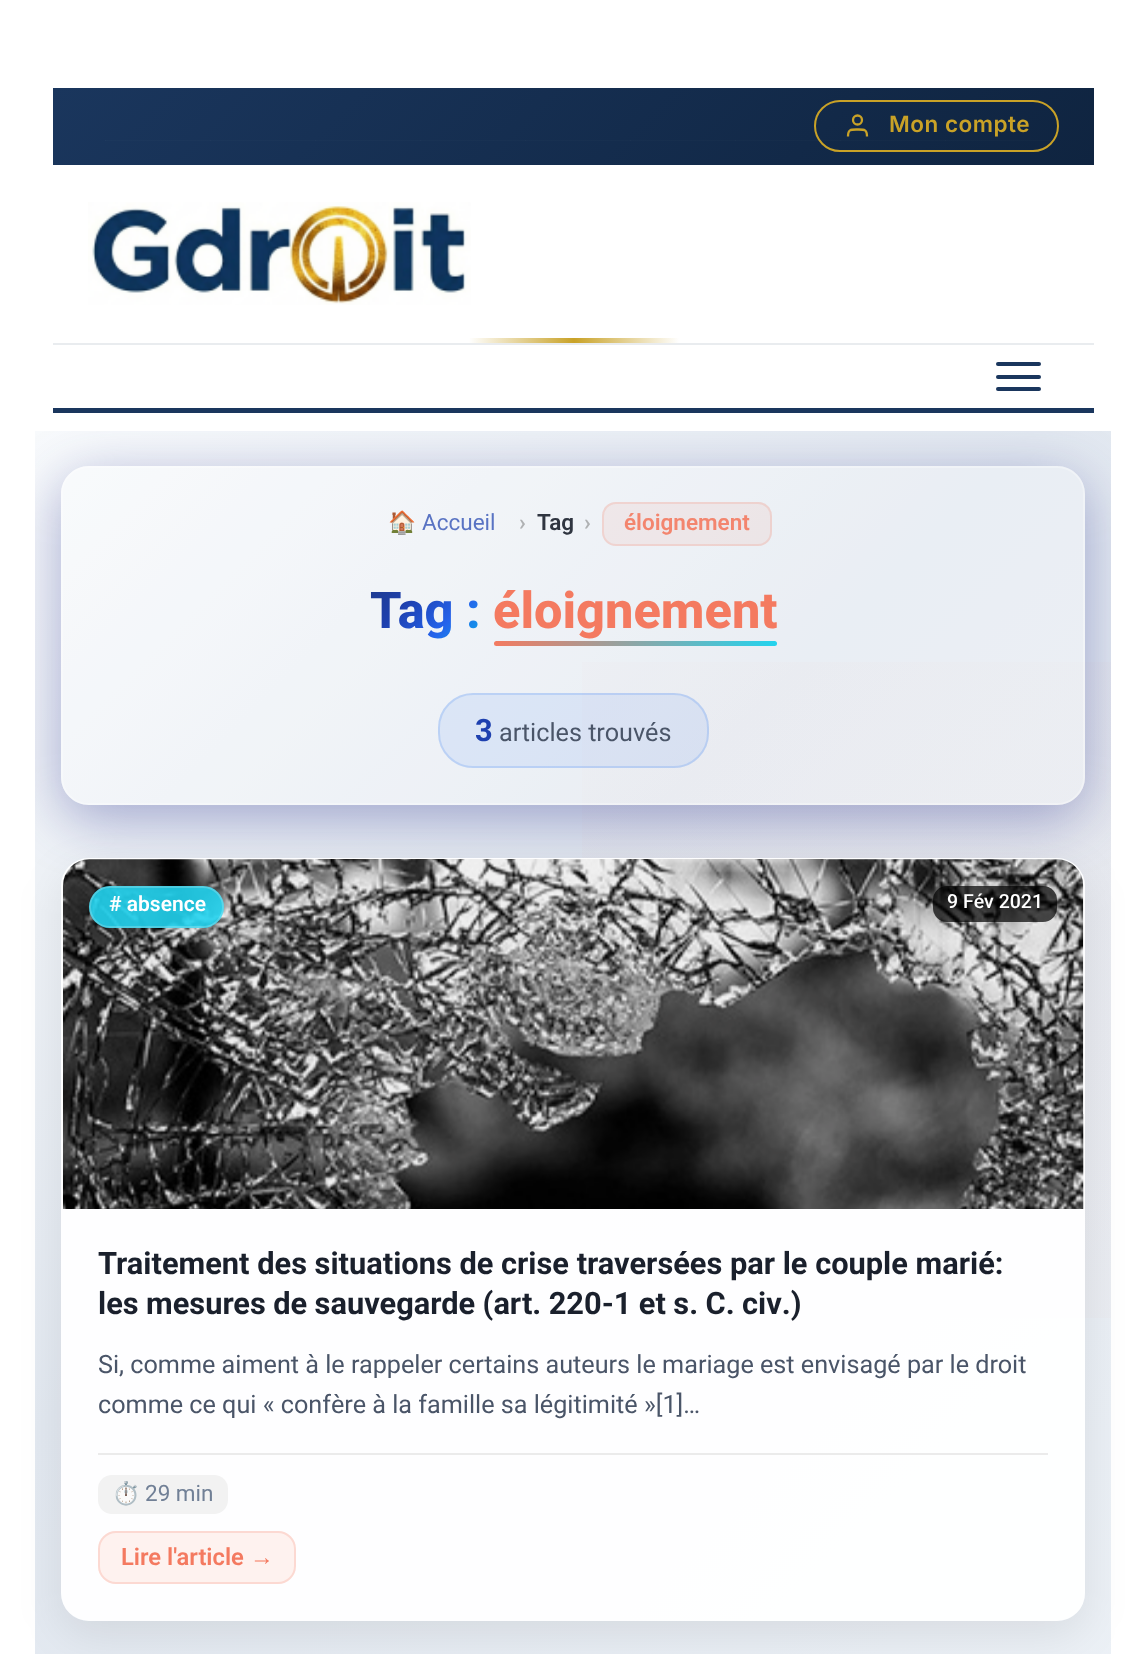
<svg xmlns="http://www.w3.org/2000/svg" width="1146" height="1654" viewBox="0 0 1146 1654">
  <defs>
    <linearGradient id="g1" gradientUnits="userSpaceOnUse" x1="294" y1="-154" x2="853" y2="406"><stop offset="0" stop-color="rgb(26,54,93)"/><stop offset="1" stop-color="rgb(15,36,64)"/></linearGradient>
    <linearGradient id="g2" gradientUnits="userSpaceOnUse" x1="469" y1="340" x2="679" y2="340"><stop offset="0" stop-color="rgb(255,255,255)"/><stop offset="0.5" stop-color="rgb(201,162,39)"/><stop offset="1" stop-color="rgb(255,255,255)"/></linearGradient>
    <linearGradient id="g3" gradientUnits="userSpaceOnUse" x1="-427" y1="893" x2="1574" y2="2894"><stop offset="0" stop-color="rgb(248,250,252)"/><stop offset="0.25" stop-color="rgb(226,232,240)"/><stop offset="0.75" stop-color="rgb(241,245,249)"/><stop offset="1" stop-color="rgb(248,250,252)"/></linearGradient>
    <radialGradient id="g4" gradientUnits="userSpaceOnUse" cx="896" cy="1016" r="2494"><stop offset="0" stop-color="rgb(244,122,96)" stop-opacity="0.03"/><stop offset="0.5" stop-color="rgb(244,122,96)" stop-opacity="0"/></radialGradient>
    <clipPath id="clip1"><rect x="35" y="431" width="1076" height="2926"/></clipPath>
    <clipPath id="clip2"><path d="M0 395H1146V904H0ZM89 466H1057C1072.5 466 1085 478.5 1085 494V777C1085 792.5 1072.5 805 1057 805H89C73.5 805 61 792.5 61 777V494C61 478.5 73.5 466 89 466Z" clip-rule="evenodd"/></clipPath>
    <linearGradient id="g5" gradientUnits="userSpaceOnUse" x1="382" y1="568" x2="467" y2="653"><stop offset="0" stop-color="rgb(30,58,138)"/><stop offset="0.35" stop-color="rgb(30,64,175)"/><stop offset="0.7" stop-color="rgb(37,99,235)"/><stop offset="1" stop-color="rgb(14,165,233)"/></linearGradient>
    <linearGradient id="g6" gradientUnits="userSpaceOnUse" x1="494" y1="643" x2="777" y2="643"><stop offset="0" stop-color="rgb(244,122,96)"/><stop offset="1" stop-color="rgb(34,211,238)"/></linearGradient>
    <clipPath id="clip3"><path d="M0 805H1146V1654H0ZM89 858H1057C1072.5 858 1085 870.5 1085 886V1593C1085 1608.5 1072.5 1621 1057 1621H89C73.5 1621 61 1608.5 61 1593V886C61 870.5 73.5 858 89 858Z" clip-rule="evenodd"/></clipPath>
    <linearGradient id="g7" gradientUnits="userSpaceOnUse" x1="231" y1="692" x2="916" y2="1377"><stop offset="0" stop-color="rgb(248,250,252)"/><stop offset="1" stop-color="rgb(226,232,240)"/></linearGradient>
  </defs>
  <rect width="100%" height="100%" fill="rgb(255,255,255)"/>
  <rect x="53" y="88" width="1041" height="77" fill="url(#g1)"/>
  <image x="105" y="140" width="946" height="1" href="pic1.png"/>
  <rect x="815" y="101" width="243" height="50" rx="25" fill="none" stroke="rgb(201,162,39)" stroke-width="2"/>
  <path d="M867 136.5C867 129 864 129.5 857.5 129.5C851 129.5 848 129 848 136.5" fill="none" stroke="rgb(201,162,39)" stroke-width="2.3"/>
  <circle cx="857.5" cy="120" r="4.5" fill="none" stroke="rgb(201,162,39)" stroke-width="2.3"/>
  <text x="889" y="132" font-family="Inter" font-size="22.5" font-weight="600" letter-spacing="0.5" fill="rgb(201,162,39)">Mon compte</text>
  <image x="88" y="202" width="383" height="103" href="pic2.png"/>
  <rect x="469" y="338" width="210" height="5" fill="url(#g2)"/>
  <rect x="53" y="343" width="1041" height="2" fill="rgb(233,236,239)"/>
  <rect x="35" y="431" width="1076" height="1223" fill="url(#g3)"/>
  <rect x="582" y="662" width="529" height="656" fill="url(#g4)"/>
  <g clip-path="url(#clip1)">
    <g clip-path="url(#clip2)">
      <rect x="61" y="480" width="1024" height="339" rx="28" fill="rgba(31,38,135,0.37)" filter="blur(28px)"/>
    </g>
  </g>
  <rect x="53" y="408" width="1041" height="5" fill="rgb(26,54,93)"/>
  <rect x="996" y="362" width="45" height="4" rx="2" fill="rgb(26,54,93)"/>
  <rect x="996" y="375" width="45" height="4" rx="2" fill="rgb(26,54,93)"/>
  <rect x="996" y="387" width="45" height="4" rx="2" fill="rgb(26,54,93)"/>
  <rect x="61" y="466" width="1024" height="339" rx="28" fill="rgba(255,255,255,0.25)"/>
  <rect x="62" y="467" width="1022" height="337" rx="27" fill="none" stroke="rgba(255,255,255,0.3)" stroke-width="2"/>
  <text x="388" y="530" font-family="Noto Color Emoji" font-size="22.5" fill="rgb(89,115,195)">🏠</text>
  <text x="422" y="530" font-family="Roboto" font-size="22.5" fill="rgb(89,115,195)">Accueil</text>
  <text x="519" y="530" font-family="Roboto" font-size="22.5" font-weight="600" fill="rgb(175,177,179)">›</text>
  <text x="537" y="530" font-family="Roboto" font-size="22.5" font-weight="600" fill="rgb(47,53,64)">Tag</text>
  <text x="584" y="530" font-family="Roboto" font-size="22.5" font-weight="600" fill="rgb(175,177,179)">›</text>
  <rect x="602" y="502" width="170" height="44" rx="14" fill="rgba(244,122,96,0.09)"/>
  <rect x="603" y="503" width="168" height="42" rx="13" fill="none" stroke="rgba(244,122,96,0.18)" stroke-width="2"/>
  <text x="624" y="530" font-family="Roboto" font-size="22.5" font-weight="600" fill="rgb(243,133,110)">éloignement</text>
  <text x="370" y="628" font-family="Roboto" font-size="50.5" font-weight="800" fill="url(#g5)">Tag :</text>
  <text x="493" y="628" font-family="Roboto" font-size="50.5" font-weight="800" fill="rgb(244,122,96)">éloignement</text>
  <rect x="494" y="641" width="283" height="5" rx="2.5" fill="url(#g6)"/>
  <rect x="438" y="693" width="271" height="75" rx="35" fill="rgba(59,130,246,0.1)"/>
  <rect x="439" y="694" width="269" height="73" rx="34" fill="none" stroke="rgba(59,130,246,0.2)" stroke-width="2"/>
  <text x="475" y="741" font-family="Roboto" font-size="30.8" font-weight="bold" fill="rgb(30,64,175)">3</text>
  <text x="499" y="741" font-family="Roboto" font-size="25.2" fill="rgb(74,85,104)">articles trouvés</text>
  <g clip-path="url(#clip3)">
    <rect x="61" y="872" width="1024" height="763" rx="28" fill="rgba(0,0,0,0.08)" filter="blur(22px)"/>
  </g>
  <rect x="61" y="858" width="1024" height="763" rx="28" fill="rgba(255,255,255,0.95)"/>
  <path d="M89 859H1057C1071.5 859 1083 870.5 1083 885V1209H63V885C63 870.5 74.5 859 89 859Z" fill="url(#g7)"/>
  <image x="63" y="859" width="1021" height="350" href="pic3.png"/>
  <rect x="89" y="886" width="135" height="42" rx="21" fill="rgba(34,211,238,0.9)"/>
  <rect x="90" y="887" width="133" height="40" rx="20" fill="none" stroke="rgba(255,255,255,0.2)" stroke-width="2"/>
  <text x="109" y="911" font-family="Roboto" font-size="21" font-weight="600" fill="rgb(255,255,255)"># absence</text>
  <rect x="933" y="886" width="124" height="36" rx="14" fill="rgba(0,0,0,0.7)"/>
  <text x="947" y="908" font-family="Roboto" font-size="19.5" font-weight="500" fill="rgb(255,255,255)">9 Fév 2021</text>
  <g font-family="Roboto" font-size="30.8" font-weight="bold" fill="rgb(26,32,44)">
    <text>
      <tspan x="98" y="1274">Traitement des situations de crise traversées par le couple marié:</tspan>
      <tspan x="98" y="1314" word-spacing="-0.25">les mesures de sauvegarde (art. 220-1 et s. C. civ.)</tspan>
    </text>
  </g>
  <g font-family="Roboto" font-size="25.2" fill="rgb(74,85,104)">
    <text>
      <tspan x="98" y="1373">Si, comme aiment à le rappeler certains auteurs le mariage est envisagé par le droit</tspan>
      <tspan x="98" y="1413">comme ce qui « confère à la famille sa légitimité »[1]…</tspan>
    </text>
  </g>
  <rect x="98" y="1453" width="950" height="2" fill="rgb(235,235,235)"/>
  <rect x="98" y="1475" width="130" height="39" rx="14" fill="rgb(242,242,242)"/>
  <text x="112" y="1501" font-family="Noto Color Emoji" font-size="22.5" fill="rgb(113,128,150)">⏱️</text>
  <text x="145" y="1501" font-family="Roboto" font-size="22.5" fill="rgb(113,128,150)">29 min</text>
  <rect x="98" y="1531" width="198" height="53" rx="18" fill="rgb(254,242,239)"/>
  <rect x="99" y="1532" width="196" height="51" rx="17" fill="none" stroke="rgba(244,122,96,0.2)" stroke-width="2"/>
  <text x="121" y="1565" font-family="Roboto" font-size="23.75" font-weight="600" fill="rgb(244,122,96)">Lire l'article</text>
  <text x="250" y="1565" font-family="Liberation Sans" font-size="23.75" font-weight="bold" fill="rgb(244,122,96)">→</text>
</svg>
